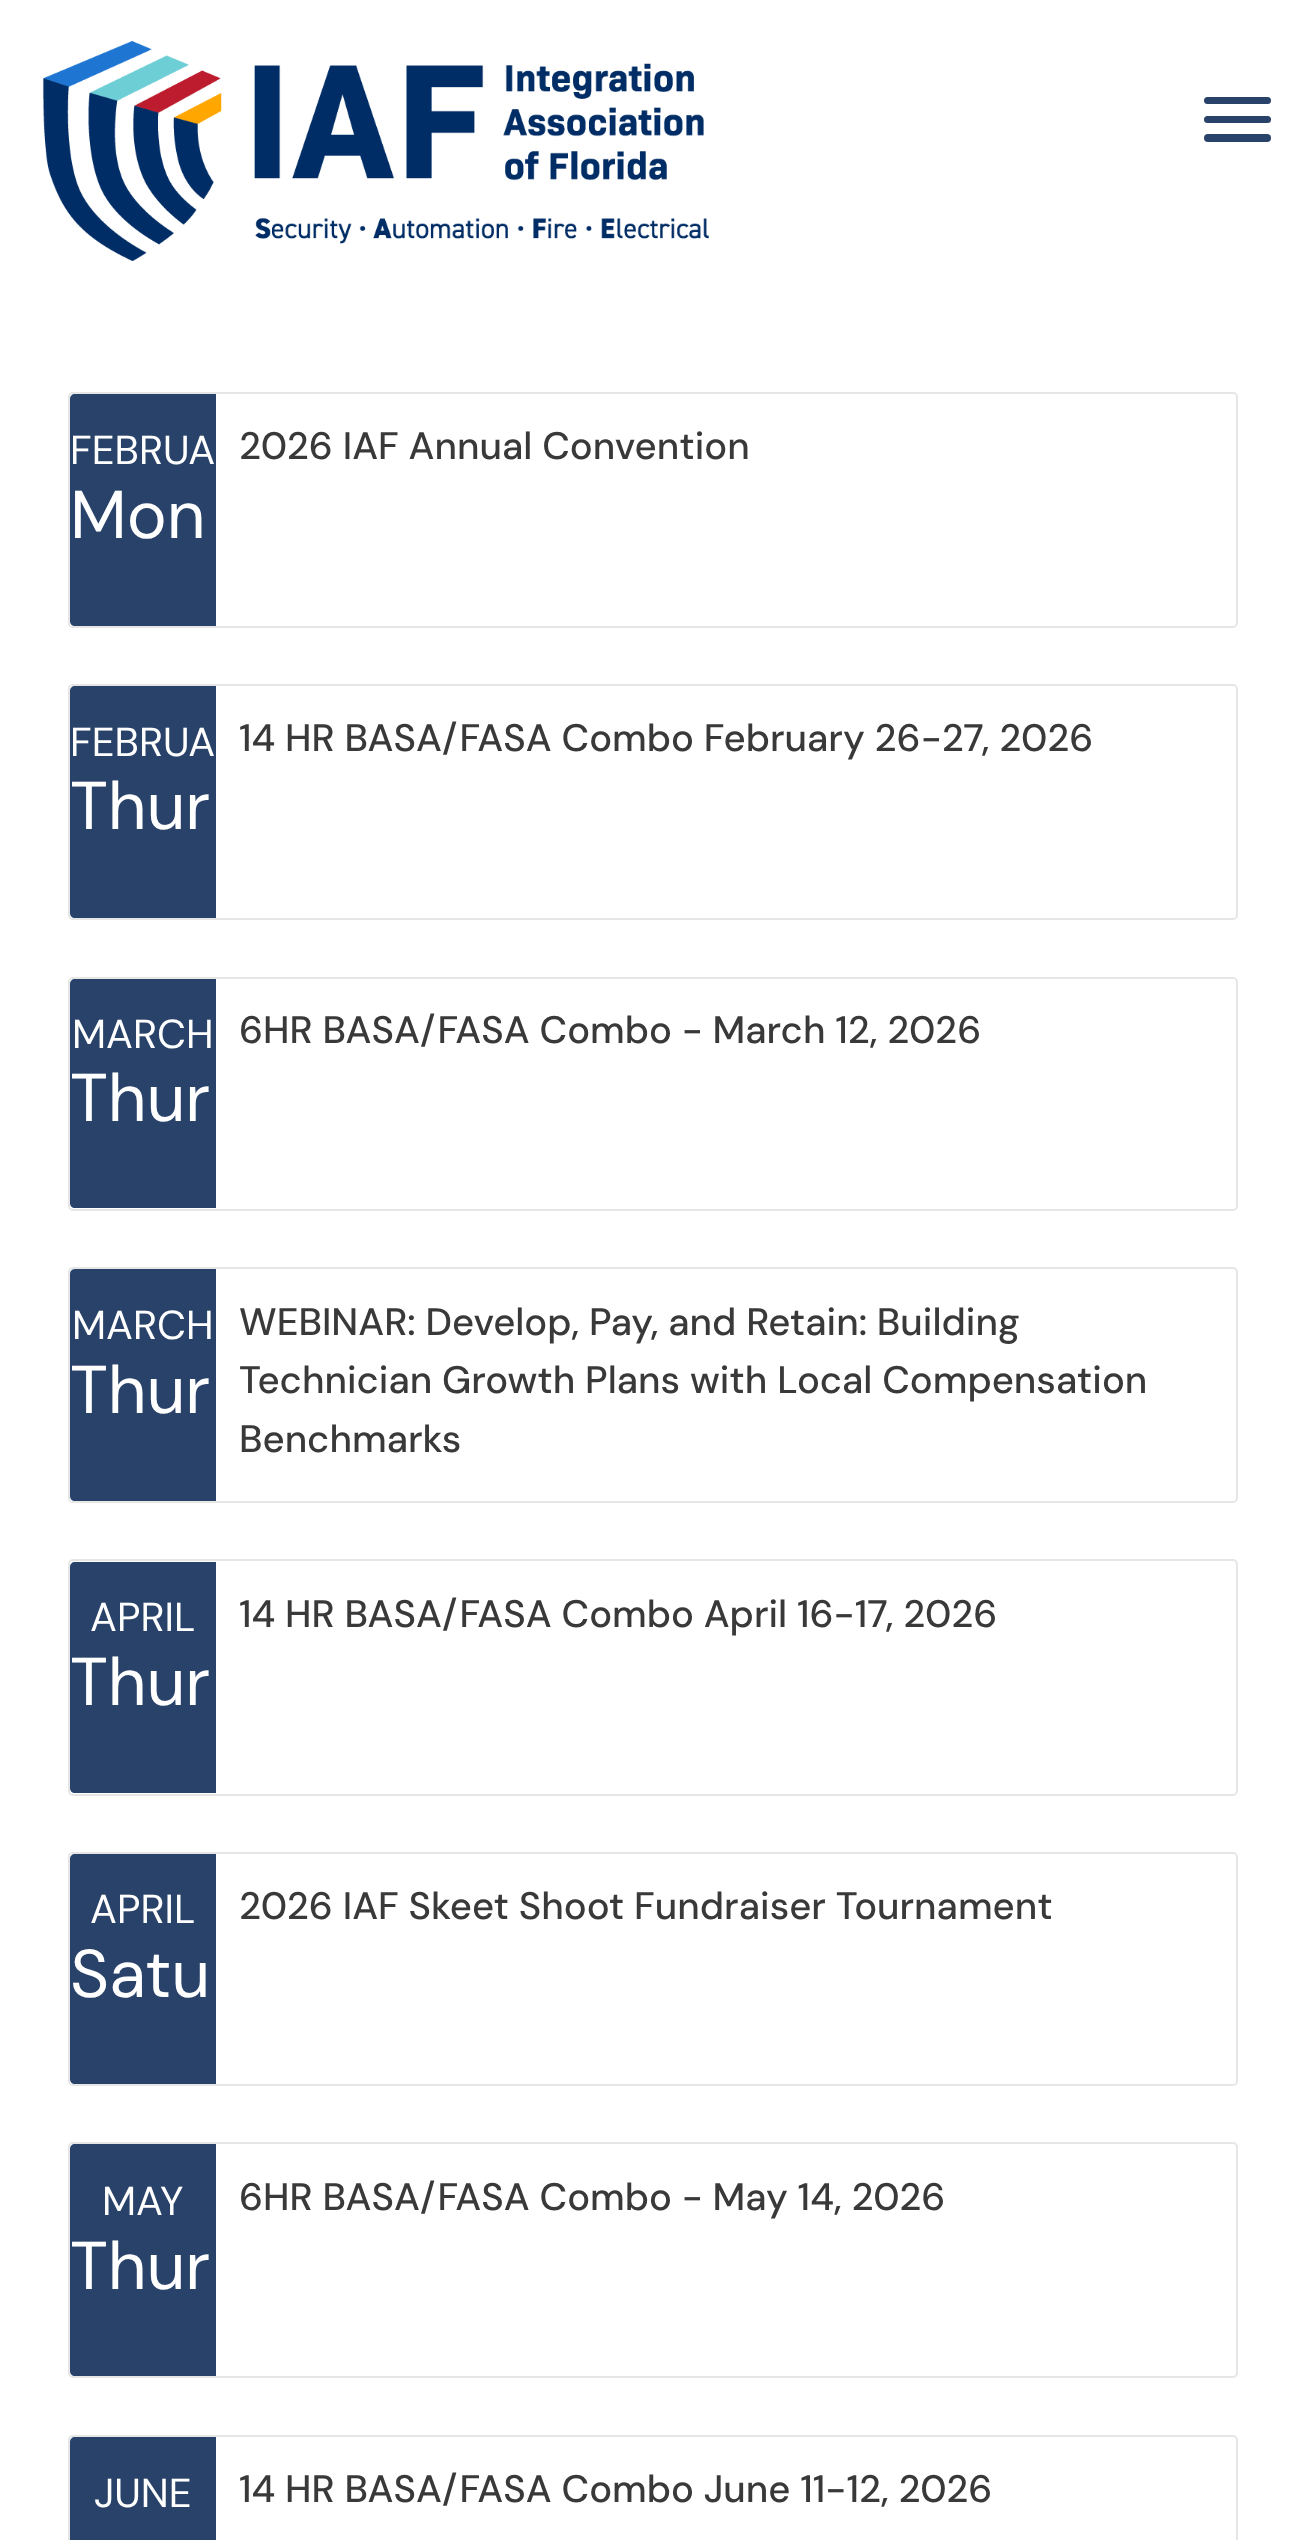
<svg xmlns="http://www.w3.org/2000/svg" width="1303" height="2540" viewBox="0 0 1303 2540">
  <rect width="100%" height="100%" fill="rgb(255,255,255)"/>
  <image x="42" y="40" width="667" height="221" href="pic1.png"/>
  <rect x="1204" y="97" width="67" height="7" rx="3.5" fill="rgb(41,66,105)"/>
  <rect x="1204" y="116" width="67" height="7" rx="3.5" fill="rgb(41,66,105)"/>
  <rect x="1204" y="134" width="67" height="8" rx="4" fill="rgb(41,66,105)"/>
  <rect x="69" y="393" width="1168" height="234" rx="4" fill="none" stroke="rgb(230,230,230)" stroke-width="2"/>
  <path d="M75 394H216V626H75C72 626 70 624 70 621V399C70 396 72 394 75 394Z" fill="rgb(41,66,105)"/>
  <text x="70" y="464" font-family="DM Sans" font-size="40.5" fill="rgb(255,255,255)">FEBRUA</text>
  <text x="70" y="538" font-family="DM Sans" font-size="67.5" fill="rgb(255,255,255)">Mon</text>
  <text x="239" y="459" font-family="DM Sans" font-size="38.25" font-weight="500" fill="rgb(58,57,58)">2026 IAF Annual Convention</text>
  <rect x="69" y="685" width="1168" height="234" rx="4" fill="none" stroke="rgb(230,230,230)" stroke-width="2"/>
  <path d="M75 686H216V918H75C72 918 70 916 70 913V691C70 688 72 686 75 686Z" fill="rgb(41,66,105)"/>
  <text x="70" y="756" font-family="DM Sans" font-size="40.5" fill="rgb(255,255,255)">FEBRUA</text>
  <text x="70" y="829" font-family="DM Sans" font-size="67.5" fill="rgb(255,255,255)">Thur</text>
  <text x="239" y="751" font-family="DM Sans" font-size="38.25" font-weight="500" fill="rgb(58,57,58)">14 HR BASA/FASA Combo February 26-27, 2026</text>
  <rect x="69" y="978" width="1168" height="232" rx="4" fill="none" stroke="rgb(230,230,230)" stroke-width="2"/>
  <path d="M75 979H216V1208H75C72 1208 70 1206 70 1203V984C70 981 72 979 75 979Z" fill="rgb(41,66,105)"/>
  <text x="72" y="1048" font-family="DM Sans" font-size="40.5" fill="rgb(255,255,255)">MARCH</text>
  <text x="70" y="1121" font-family="DM Sans" font-size="67.5" fill="rgb(255,255,255)">Thur</text>
  <text x="239" y="1043" font-family="DM Sans" font-size="38.25" font-weight="500" fill="rgb(58,57,58)">6HR BASA/FASA Combo - March 12, 2026</text>
  <rect x="69" y="1268" width="1168" height="234" rx="4" fill="none" stroke="rgb(230,230,230)" stroke-width="2"/>
  <path d="M75 1269H216V1501H75C72 1501 70 1499 70 1496V1274C70 1271 72 1269 75 1269Z" fill="rgb(41,66,105)"/>
  <text x="72" y="1339" font-family="DM Sans" font-size="40.5" fill="rgb(255,255,255)">MARCH</text>
  <text x="70" y="1413" font-family="DM Sans" font-size="67.5" fill="rgb(255,255,255)">Thur</text>
  <g font-family="DM Sans" font-size="38.25" font-weight="500" fill="rgb(58,57,58)">
    <text>
      <tspan x="239" y="1335">WEBINAR: Develop, Pay, and Retain: Building</tspan>
      <tspan x="239" y="1393">Technician Growth Plans with Local Compensation</tspan>
      <tspan x="239" y="1452">Benchmarks</tspan>
    </text>
  </g>
  <rect x="69" y="1560" width="1168" height="235" rx="4" fill="none" stroke="rgb(230,230,230)" stroke-width="2"/>
  <path d="M75 1562H216V1793H75C72 1793 70 1791 70 1788V1567C70 1564 72 1562 75 1562Z" fill="rgb(41,66,105)"/>
  <text x="90" y="1631" font-family="DM Sans" font-size="40.5" fill="rgb(255,255,255)">APRIL</text>
  <text x="70" y="1705" font-family="DM Sans" font-size="67.5" fill="rgb(255,255,255)">Thur</text>
  <text x="239" y="1627" font-family="DM Sans" font-size="38.25" font-weight="500" fill="rgb(58,57,58)">14 HR BASA/FASA Combo April 16-17, 2026</text>
  <rect x="69" y="1853" width="1168" height="232" rx="4" fill="none" stroke="rgb(230,230,230)" stroke-width="2"/>
  <path d="M75 1854H216V2084H75C72 2084 70 2082 70 2079V1859C70 1856 72 1854 75 1854Z" fill="rgb(41,66,105)"/>
  <text x="90" y="1923" font-family="DM Sans" font-size="40.5" fill="rgb(255,255,255)">APRIL</text>
  <text x="70" y="1997" font-family="DM Sans" font-size="67.5" fill="rgb(255,255,255)">Satu</text>
  <text x="239" y="1919" font-family="DM Sans" font-size="38.25" font-weight="500" fill="rgb(58,57,58)">2026 IAF Skeet Shoot Fundraiser Tournament</text>
  <rect x="69" y="2143" width="1168" height="234" rx="4" fill="none" stroke="rgb(230,230,230)" stroke-width="2"/>
  <path d="M75 2144H216V2376H75C72 2376 70 2374 70 2371V2149C70 2146 72 2144 75 2144Z" fill="rgb(41,66,105)"/>
  <text x="102" y="2215" font-family="DM Sans" font-size="40.5" fill="rgb(255,255,255)">MAY</text>
  <text x="70" y="2289" font-family="DM Sans" font-size="67.5" fill="rgb(255,255,255)">Thur</text>
  <text x="239" y="2210" font-family="DM Sans" font-size="38.25" font-weight="500" fill="rgb(58,57,58)">6HR BASA/FASA Combo - May 14, 2026</text>
  <rect x="69" y="2436" width="1168" height="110" rx="4" fill="none" stroke="rgb(230,230,230)" stroke-width="2"/>
  <path d="M75 2437H216V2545H75C72 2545 70 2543 70 2540V2442C70 2439 72 2437 75 2437Z" fill="rgb(41,66,105)"/>
  <text x="94" y="2507" font-family="DM Sans" font-size="40.5" fill="rgb(255,255,255)">JUNE</text>
  <text x="239" y="2502" font-family="DM Sans" font-size="38.25" font-weight="500" fill="rgb(58,57,58)">14 HR BASA/FASA Combo June 11-12, 2026</text>
</svg>
